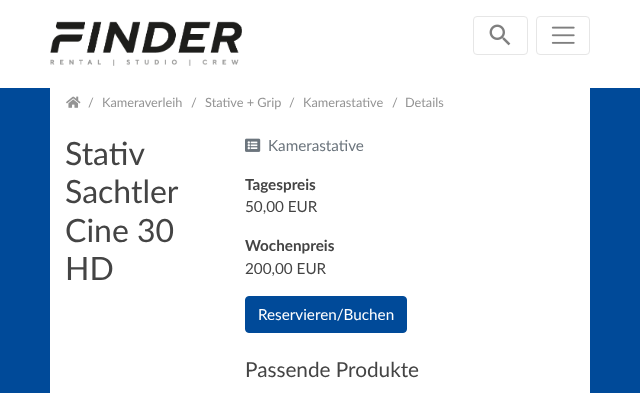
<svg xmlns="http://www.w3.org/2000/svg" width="640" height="393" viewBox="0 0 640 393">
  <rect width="100%" height="100%" fill="rgb(0,74,153)"/>
  <rect x="0" y="0" width="640" height="88" fill="rgb(255,255,255)"/>
  <image x="50" y="21" width="192" height="45" href="pic1.png"/>
  <rect x="473.5" y="16.5" width="54" height="38" rx="3.5" fill="none" stroke="rgb(230,230,230)"/>
  <image x="489" y="24" width="22" height="22" href="pic2.png"/>
  <rect x="536.5" y="16.5" width="53" height="38" rx="3.5" fill="none" stroke="rgb(230,230,230)"/>
  <image x="551" y="26" width="24" height="18" href="pic3.png"/>
  <rect x="50" y="88" width="540" height="305" fill="rgb(255,255,255)"/>
  <image x="66" y="96" width="15" height="12" href="pic4.png"/>
  <g font-family="Lato" font-size="12.75" fill="rgb(148,148,148)">
    <text x="88" y="107">/</text>
    <text x="102" y="107">Kameraverleih</text>
    <text x="191" y="107">/</text>
    <text x="205" y="107">Stative + Grip</text>
    <text x="289" y="107">/</text>
    <text x="303" y="107">Kamerastative</text>
    <text x="392" y="107">/</text>
    <text x="405" y="107">Details</text>
  </g>
  <g font-family="Lato" font-size="32" fill="rgb(68,68,68)">
    <text>
      <tspan x="65" y="165">Stativ</tspan>
      <tspan x="65" y="203">Sachtler</tspan>
      <tspan x="65" y="242">Cine 30</tspan>
      <tspan x="65" y="280">HD</tspan>
    </text>
  </g>
  <image x="245" y="138" width="16" height="14" href="pic5.png"/>
  <text x="268" y="151" font-family="Lato" font-size="15.25" fill="rgb(108,117,125)">Kamerastative</text>
  <text x="245" y="190" font-family="Lato" font-size="15.25" font-weight="bold" fill="rgb(68,68,68)">Tagespreis</text>
  <text x="245" y="212" font-family="Lato" font-size="15.25" fill="rgb(68,68,68)">50,00 EUR</text>
  <text x="245" y="251" font-family="Lato" font-size="15.25" font-weight="bold" fill="rgb(68,68,68)">Wochenpreis</text>
  <text x="245" y="274" font-family="Lato" font-size="15.25" fill="rgb(68,68,68)">200,00 EUR</text>
  <rect x="245.5" y="296.5" width="161" height="36" rx="3.5" fill="rgb(0,74,153)" stroke="rgb(0,74,153)"/>
  <text x="258" y="320" font-family="Lato" font-size="15.25" fill="rgb(255,255,255)">Reservieren/Buchen</text>
  <text x="245" y="377" font-family="Lato" font-size="20.75" fill="rgb(68,68,68)">Passende Produkte</text>
</svg>
